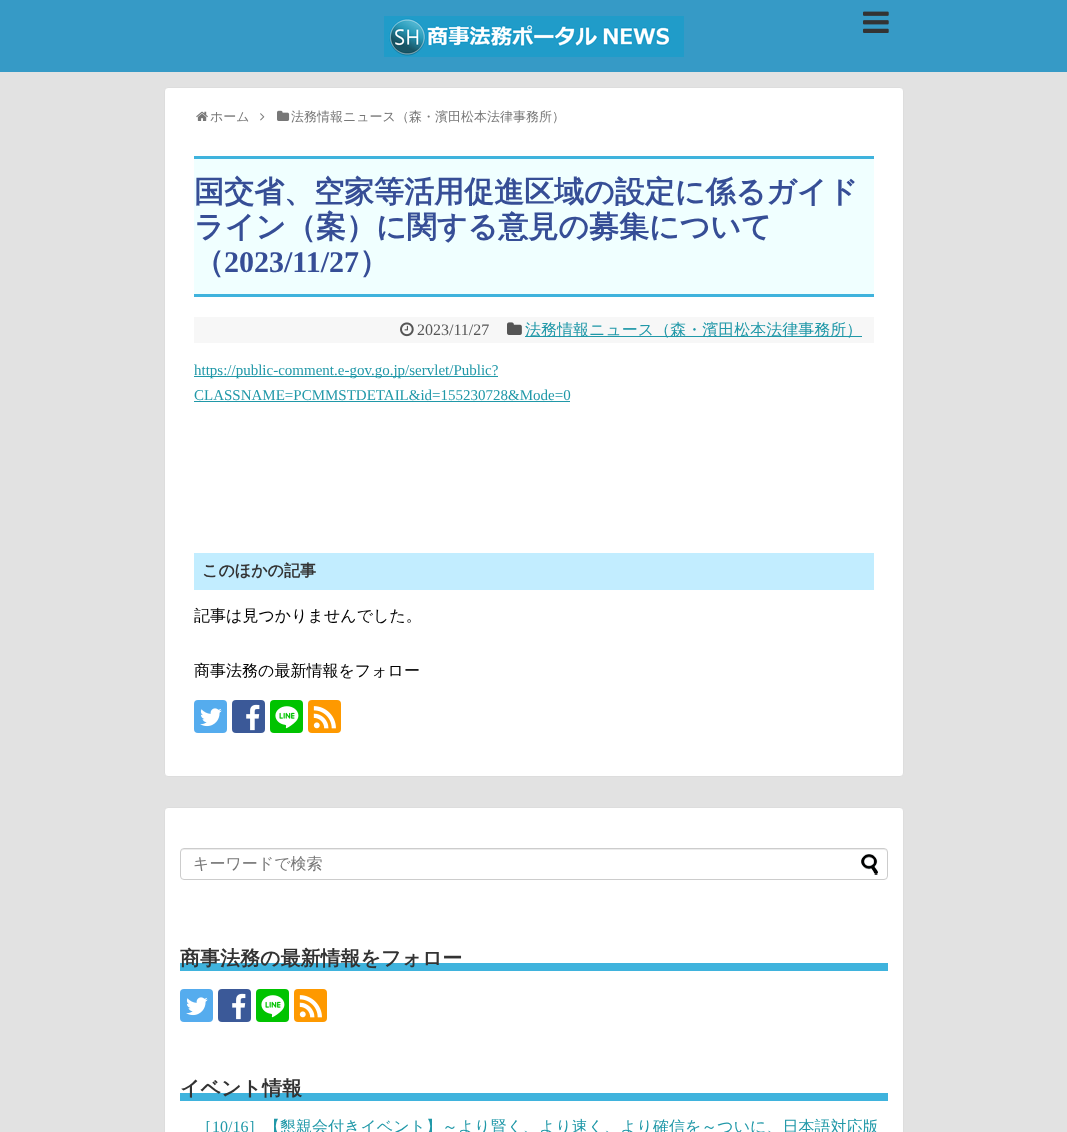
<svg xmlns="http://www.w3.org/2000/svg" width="1067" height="1132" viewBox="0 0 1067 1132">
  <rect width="100%" height="100%" fill="rgb(226,226,226)"/>
  <rect x="0" y="0" width="1067" height="72" fill="rgb(54,154,198)"/>
  <image x="384" y="16" width="300" height="41" href="pic1.png"/>
  <image x="863" y="11" width="26" height="22" href="pic2.png"/>
  <rect x="164.5" y="87.5" width="739" height="689" rx="3.5" fill="rgb(255,255,255)" stroke="rgb(221,221,221)"/>
  <image x="196" y="111" width="12" height="10" href="pic3.png"/>
  <text x="210" y="121" font-family="WenQuanYi Zen Hei" font-size="13" font-weight="500" fill="rgb(119,119,119)">ホーム</text>
  <image x="260" y="113" width="5" height="8" href="pic4.png"/>
  <image x="277" y="110" width="13" height="11" href="pic5.png"/>
  <text x="291" y="121" font-family="WenQuanYi Zen Hei" font-size="13" font-weight="500" fill="rgb(119,119,119)">法務情報ニュース（森・濱田松本法律事務所）</text>
  <rect x="194" y="159" width="680" height="135" fill="rgb(240,255,255)"/>
  <rect x="194" y="156" width="680" height="3" fill="rgb(63,179,221)"/>
  <rect x="194" y="294" width="680" height="3" fill="rgb(63,179,221)"/>
  <g font-family="WenQuanYi Zen Hei" font-size="30" font-weight="bold" fill="rgb(54,78,150)">
    <text>
      <tspan x="194" y="202">国交省、空家等活用促進区域の設定に係るガイド</tspan>
      <tspan x="194" y="237">ライン（案）に関する意見の募集について</tspan>
      <tspan x="194" y="272">（</tspan>
    </text>
  </g>
  <text x="224" y="272" font-family="Liberation Serif" font-size="30" font-weight="bold" fill="rgb(54,78,150)">2023/11/27</text>
  <text x="359" y="272" font-family="WenQuanYi Zen Hei" font-size="30" font-weight="bold" fill="rgb(54,78,150)">）</text>
  <rect x="194" y="317" width="680" height="26" fill="rgb(247,247,247)"/>
  <image x="400" y="322" width="14" height="15" href="pic6.png"/>
  <text x="417" y="335" font-family="Liberation Serif" font-size="16" fill="rgb(85,85,85)">2023/11/27</text>
  <image x="507" y="322" width="15" height="13" href="pic7.png"/>
  <rect x="525" y="336" width="337" height="1" fill="rgb(32,152,168)"/>
  <text x="525" y="335" font-family="WenQuanYi Zen Hei" font-size="16" font-weight="500" fill="rgb(32,152,168)">法務情報ニュース（森・濱田松本法律事務所）</text>
  <rect x="194" y="376" width="304" height="1" fill="rgb(32,152,168)"/>
  <g font-family="Liberation Serif" font-size="15" fill="rgb(32,152,168)">
    <text>
      <tspan x="194" y="375">https://public-comment.e-gov.go.jp/servlet/Public?</tspan>
      <tspan x="194" y="400">CLASSNAME=PCMMSTDETAIL&amp;id=155230728&amp;Mode=0</tspan>
    </text>
  </g>
  <rect x="194" y="401" width="376" height="1" fill="rgb(32,152,168)"/>
  <rect x="194" y="553" width="680" height="37" fill="rgb(194,237,255)"/>
  <text x="202" y="576" font-family="WenQuanYi Zen Hei" font-size="16" font-weight="bold" fill="rgb(51,51,51)">このほかの記事</text>
  <g font-family="WenQuanYi Zen Hei" font-size="16" font-weight="500" fill="rgb(0,0,0)">
    <text x="194" y="621">記事は見つかりませんでした。</text>
    <text x="194" y="676">商事法務の最新情報をフォロー</text>
  </g>
  <rect x="194" y="700" width="33" height="33" rx="4" fill="rgb(85,172,238)"/>
  <image x="200" y="708" width="22" height="19" href="pic8.png"/>
  <rect x="232" y="700" width="33" height="33" rx="4" fill="rgb(59,89,152)"/>
  <image x="246" y="704" width="14" height="27" href="pic9.png"/>
  <rect x="270" y="700" width="33" height="33" rx="4" fill="rgb(0,195,0)"/>
  <image x="275" y="706" width="24" height="23" href="pic10.png"/>
  <rect x="308" y="700" width="33" height="33" rx="4" fill="rgb(254,153,0)"/>
  <image x="313" y="706" width="23" height="23" href="pic11.png"/>
  <rect x="164.5" y="807.5" width="739" height="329" rx="3.5" fill="rgb(255,255,255)" stroke="rgb(221,221,221)"/>
  <path d="M184 850H884C886 850 887 851 887 853C887 851 886 849 884 849H184C182 849 181 851 181 853C181 851 182 850 184 850Z" fill="rgb(236,236,236)"/>
  <rect x="180.5" y="848.5" width="707" height="31" rx="3.5" fill="none" stroke="rgb(204,204,204)"/>
  <text x="193" y="869" font-family="WenQuanYi Zen Hei" font-size="16" font-weight="500" fill="rgb(119,119,119)">キーワードで検索</text>
  <image x="861" y="854" width="17" height="21" href="pic12.png"/>
  <rect x="180" y="963" width="708" height="8" fill="rgb(63,179,221)"/>
  <text x="180" y="965" font-family="WenQuanYi Zen Hei" font-size="20" font-weight="bold" fill="rgb(51,51,51)">商事法務の最新情報をフォロー</text>
  <rect x="180" y="989" width="33" height="33" rx="4" fill="rgb(85,172,238)"/>
  <image x="186" y="997" width="22" height="19" href="pic8.png"/>
  <rect x="218" y="989" width="33" height="33" rx="4" fill="rgb(59,89,152)"/>
  <image x="232" y="993" width="14" height="27" href="pic9.png"/>
  <rect x="256" y="989" width="33" height="33" rx="4" fill="rgb(0,195,0)"/>
  <image x="261" y="995" width="24" height="23" href="pic10.png"/>
  <rect x="294" y="989" width="33" height="33" rx="4" fill="rgb(254,153,0)"/>
  <image x="299" y="995" width="23" height="23" href="pic11.png"/>
  <rect x="180" y="1093" width="708" height="8" fill="rgb(63,179,221)"/>
  <text x="180" y="1095" font-family="WenQuanYi Zen Hei" font-size="20" font-weight="bold" fill="rgb(51,51,51)">イベント情報</text>
  <text x="196" y="1132" font-family="WenQuanYi Zen Hei" font-size="16" font-weight="500" fill="rgb(32,152,168)">［</text>
  <text x="212" y="1132" font-family="Liberation Serif" font-size="16" fill="rgb(32,152,168)">10/16</text>
  <text x="248" y="1132" font-family="WenQuanYi Zen Hei" font-size="16" font-weight="500" fill="rgb(32,152,168)">］【懇親会付きイベント】～より賢く、より速く、より確信を～ついに、日本語対応版</text>
</svg>
